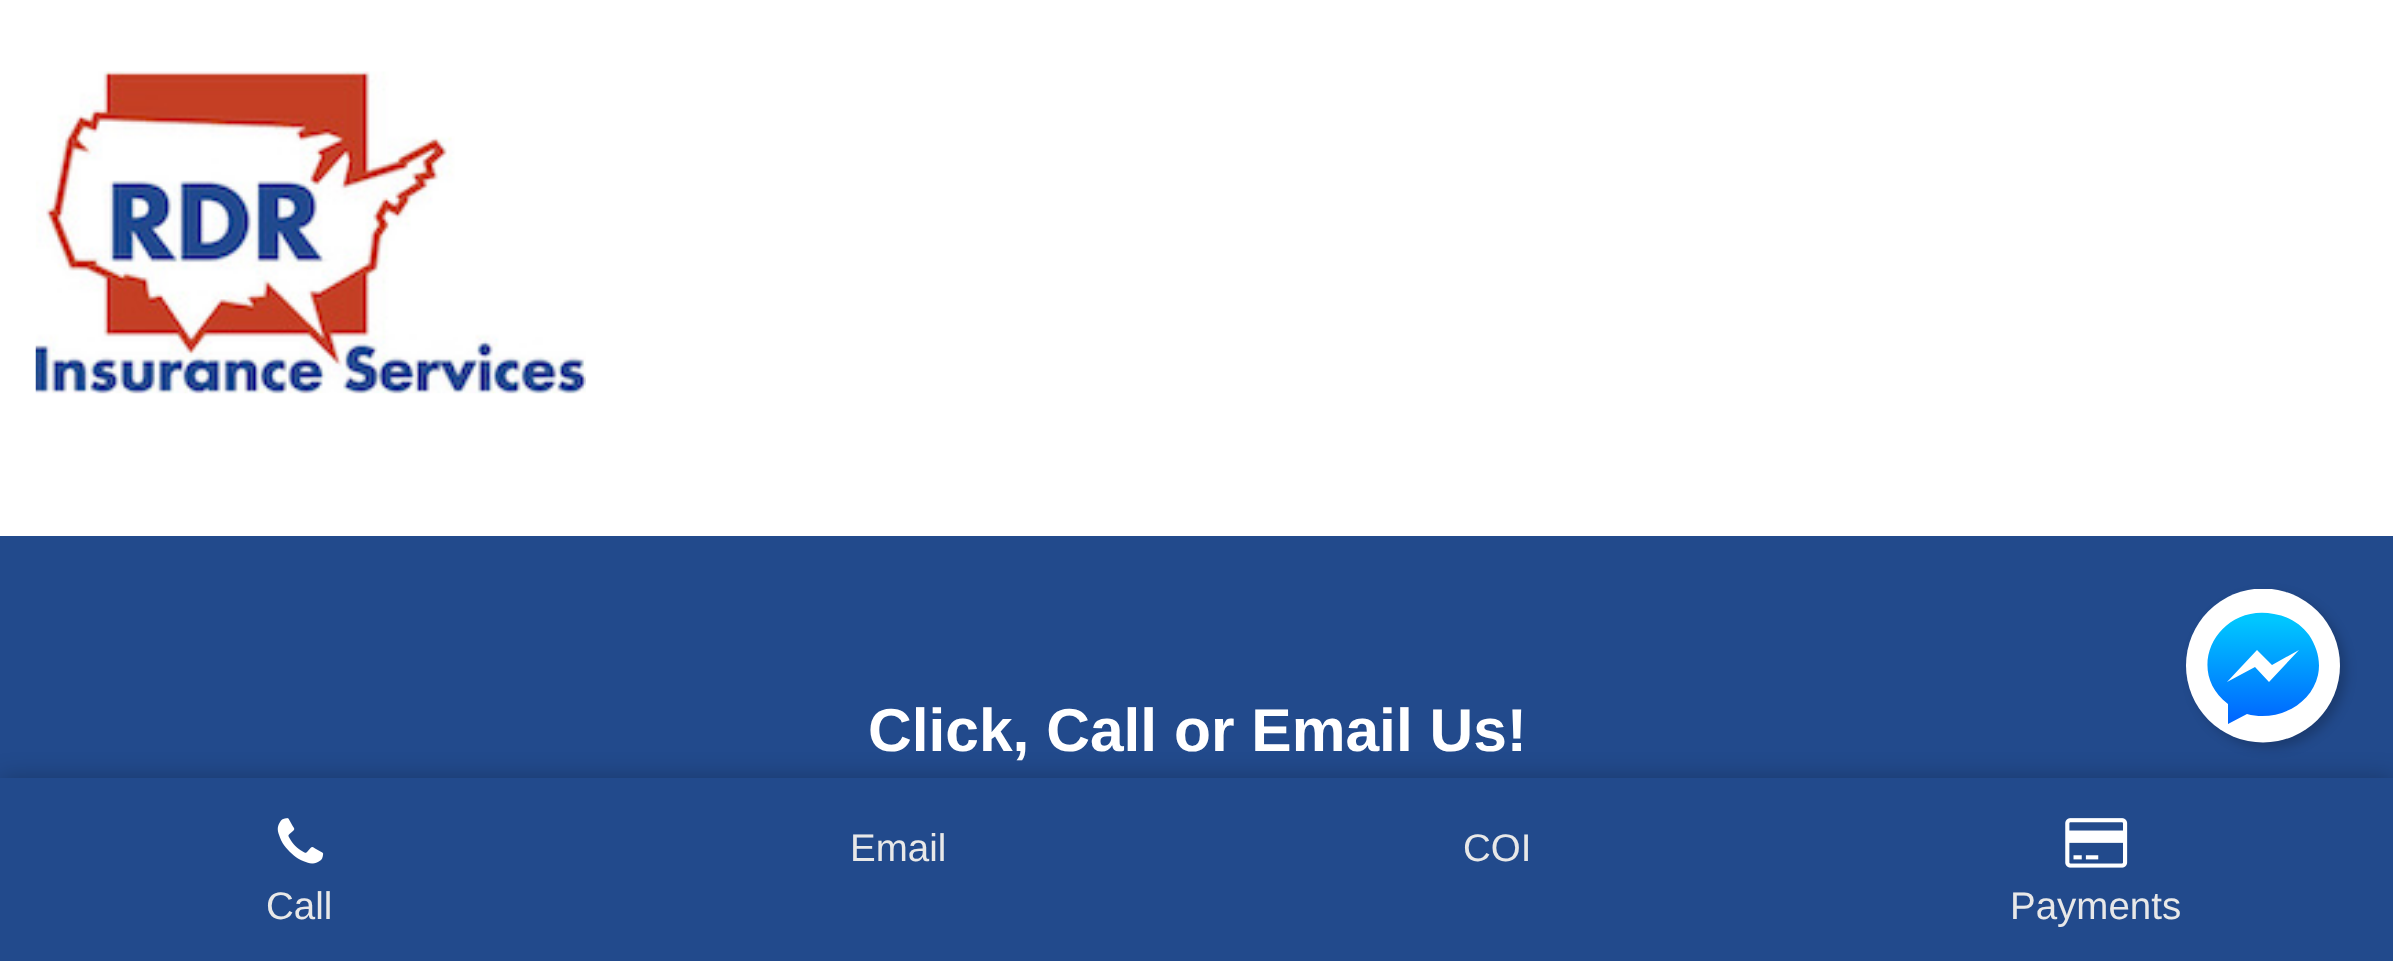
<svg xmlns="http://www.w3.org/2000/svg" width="2393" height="961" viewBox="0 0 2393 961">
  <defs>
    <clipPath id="clip1"><rect x="2186" y="589" width="154" height="154"/></clipPath>
    <linearGradient id="g1" gradientUnits="userSpaceOnUse" x1="2263" y1="620" x2="2263" y2="719"><stop offset="0" stop-color="rgb(0,198,255)"/><stop offset="1" stop-color="rgb(0,104,255)"/></linearGradient>
  </defs>
  <rect width="100%" height="100%" fill="rgb(255,255,255)"/>
  <image x="35" y="71" width="551" height="323" href="pic1.png"/>
  <rect x="0" y="536" width="2393" height="242" fill="rgb(34,74,140)"/>
  <text x="868" y="751" font-family="Liberation Sans" font-size="60.5" font-weight="bold" fill="rgb(255,255,255)">Click, Call or Email Us!</text>
  <rect x="2192" y="594" width="154" height="154" rx="77" fill="rgba(0,0,0,0.2)" filter="blur(5.5px)"/>
  <rect x="0" y="778" width="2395" height="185" fill="rgba(0,0,0,0.25)" filter="blur(12.5px)"/>
  <g clip-path="url(#clip1)">
    <circle cx="2263" cy="665.5" r="77" fill="rgb(255,255,255)"/>
  </g>
  <path d="M2228 704V724L2247 714C2276 722 2311 706 2318 675C2321 661 2317 647 2309 635C2301 624 2288 616 2274 614C2218 603 2183 670 2228 704Z" fill="url(#g1)"/>
  <path d="M2257 650L2227 682L2255 667L2269 682L2299 650L2272 665Z" fill="rgb(255,255,255)"/>
  <rect x="0" y="778" width="2393" height="183" fill="rgb(34,74,140)"/>
  <g font-family="Liberation Sans" font-size="38.5" fill="rgb(232,232,232)">
    <text x="850" y="861">Email</text>
    <text x="1463" y="861">COI</text>
  </g>
  <image x="277" y="818" width="47" height="46" href="pic2.png"/>
  <text x="266" y="919" font-family="Liberation Sans" font-size="38.5" fill="rgb(232,232,232)">Call</text>
  <image x="2065" y="818" width="63" height="50" href="pic3.png"/>
  <text x="2010" y="919" font-family="Liberation Sans" font-size="38.5" fill="rgb(232,232,232)">Payments</text>
</svg>
